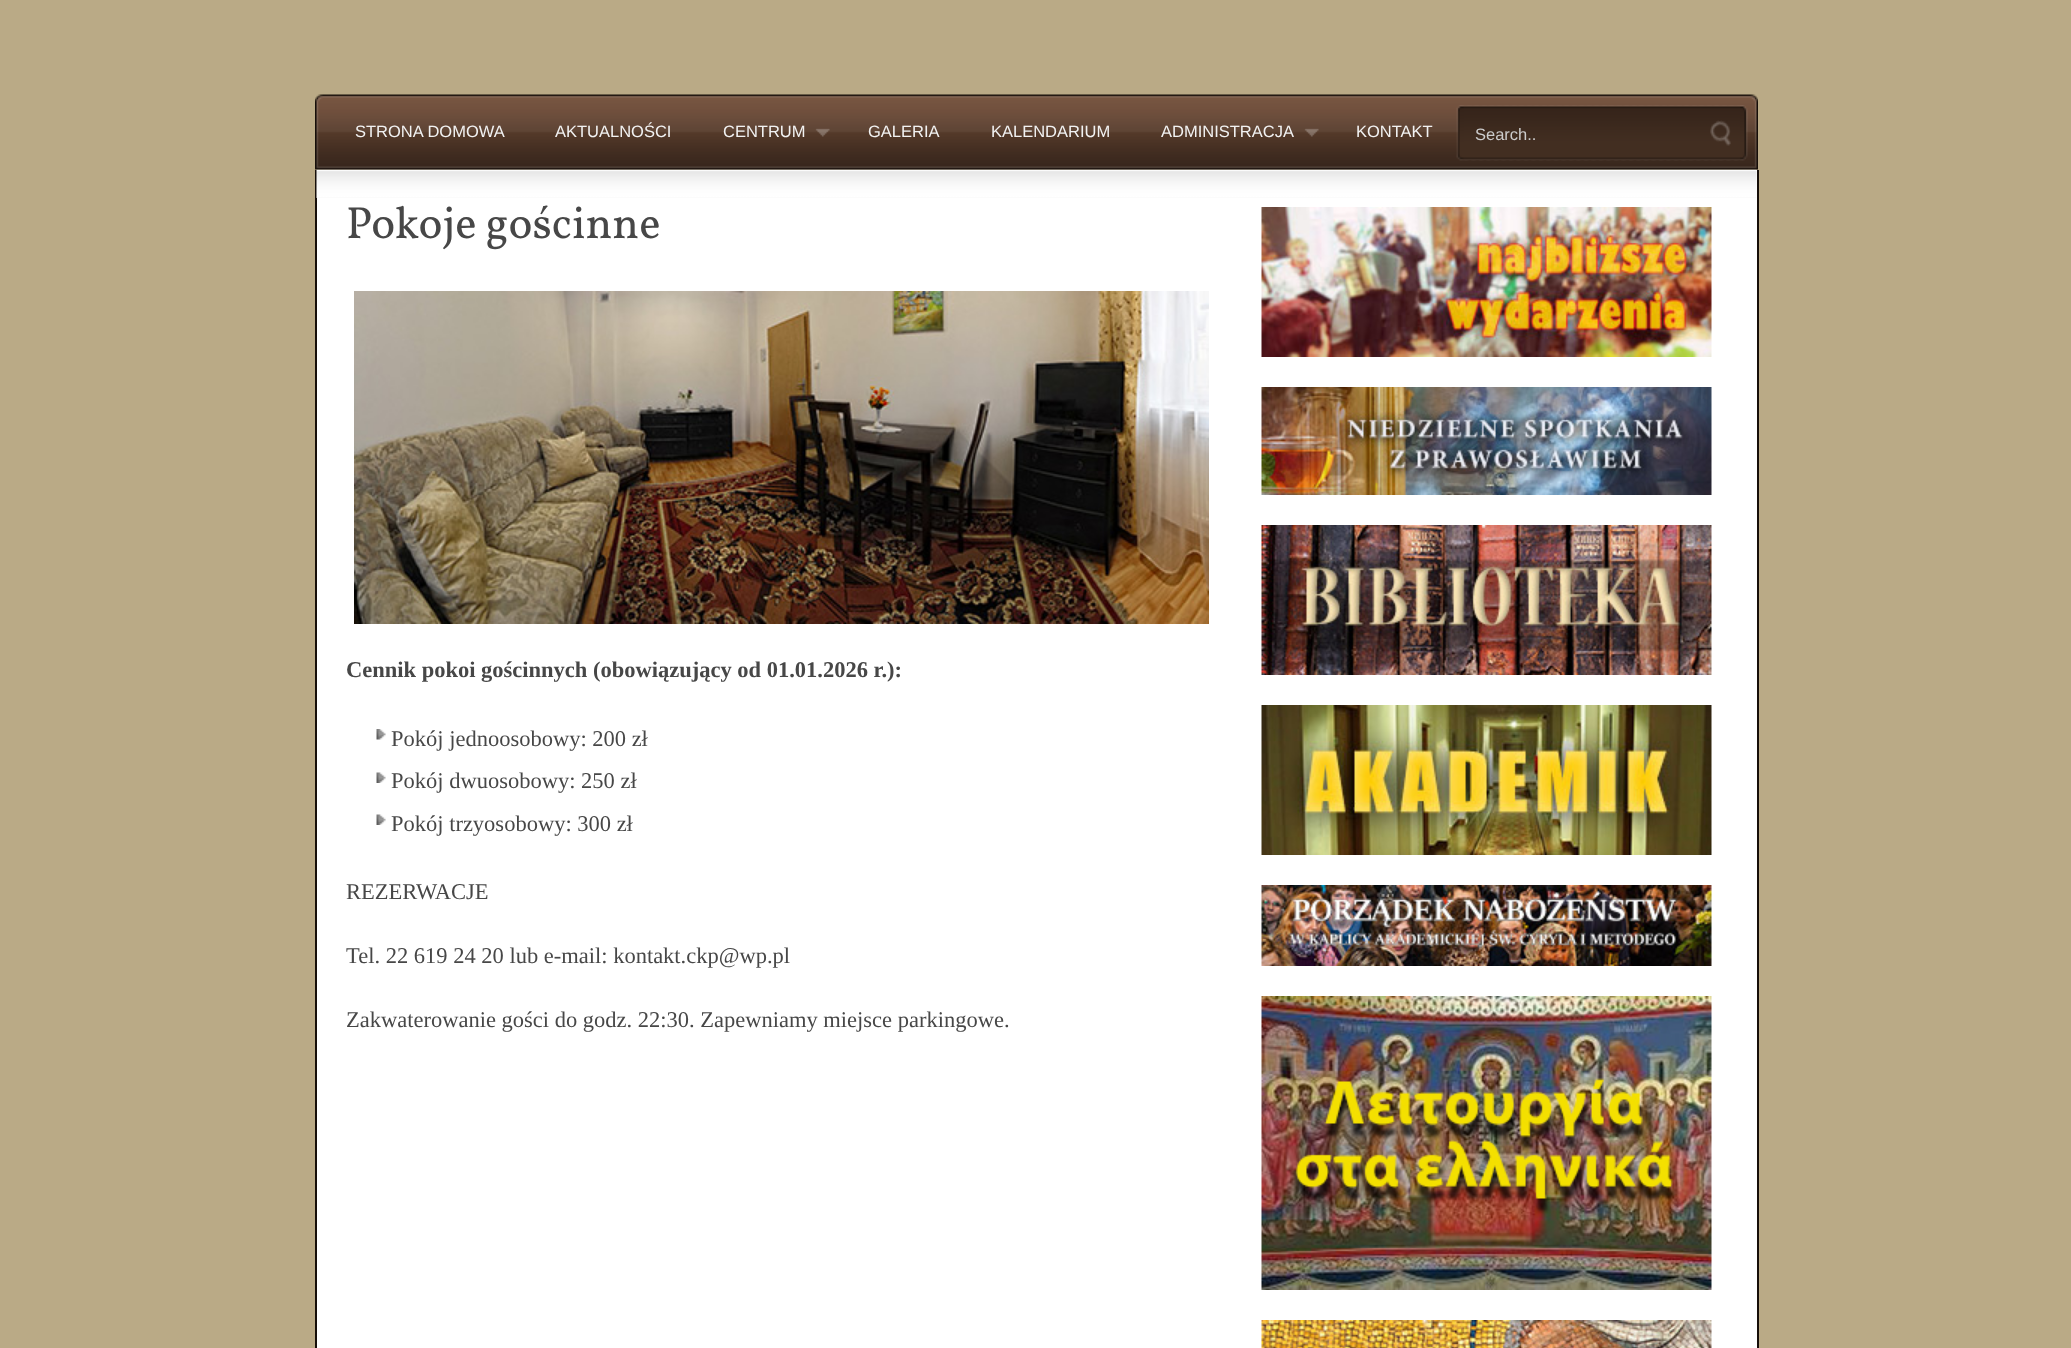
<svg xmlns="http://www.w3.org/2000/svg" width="2071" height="1348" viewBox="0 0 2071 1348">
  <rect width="100%" height="100%" fill="rgb(186,170,134)"/>
  <rect x="315" y="170" width="2" height="1178" fill="rgb(22,14,9)"/>
  <rect x="317" y="170" width="1440" height="1178" fill="rgb(255,255,255)"/>
  <image x="316" y="169" width="1441" height="29" href="pic8.png"/>
  <image x="315" y="94" width="1443" height="76" href="pic1.png"/>
  <g font-family="Liberation Sans" font-size="16.5" fill="rgb(242,242,242)">
    <text x="355" y="137">STRONA DOMOWA</text>
    <text x="555" y="137">AKTUALNOŚCI</text>
    <text x="723" y="137">CENTRUM</text>
  </g>
  <image x="815" y="128" width="15" height="9" href="pic2.png"/>
  <g font-family="Liberation Sans" font-size="16.5" fill="rgb(242,242,242)">
    <text x="868" y="137">GALERIA</text>
    <text x="991" y="137">KALENDARIUM</text>
    <text x="1161" y="137">ADMINISTRACJA</text>
  </g>
  <image x="1304" y="128" width="15" height="9" href="pic3.png"/>
  <text x="1356" y="137" font-family="Liberation Sans" font-size="16.5" fill="rgb(242,242,242)">KONTAKT</text>
  <image x="1456" y="105" width="8" height="56" href="pic4.png"/>
  <image x="1464" y="105" width="276" height="56" href="pic5.png"/>
  <text x="1475" y="140" font-family="Liberation Sans" font-size="16.5" fill="rgb(204,204,204)">Search..</text>
  <image x="1710" y="120" width="21" height="26" href="pic6.png"/>
  <image x="1740" y="105" width="8" height="56" href="pic7.png"/>
  <rect x="1757" y="170" width="2" height="1178" fill="rgb(22,14,9)"/>
  <text x="346" y="238" font-family="Vollkorn" font-size="45" fill="rgb(71,71,71)">Pokoje gościnne</text>
  <image x="354" y="291" width="855" height="333" href="pic9.png"/>
  <text x="346" y="677" font-family="Liberation Serif" font-size="22.5" font-weight="bold" fill="rgb(71,71,71)">Cennik pokoi gościnnych (obowiązujący od 01.01.2026 r.):</text>
  <image x="376" y="729" width="10" height="11" href="pic10.png"/>
  <text x="391" y="746" font-family="Liberation Serif" font-size="22.5" fill="rgb(71,71,71)">Pokój jednoosobowy: 200 zł</text>
  <image x="376" y="772" width="10" height="11" href="pic11.png"/>
  <text x="391" y="788" font-family="Liberation Serif" font-size="22.5" fill="rgb(71,71,71)">Pokój dwuosobowy: 250 zł</text>
  <image x="376" y="814" width="10" height="11" href="pic11.png"/>
  <g font-family="Liberation Serif" font-size="22.5" fill="rgb(71,71,71)">
    <text x="391" y="831">Pokój trzyosobowy: 300 zł</text>
    <text x="346" y="899">REZERWACJE</text>
    <text x="346" y="963">Tel. 22 619 24 20 lub e-mail: kontakt.ckp@wp.pl</text>
    <text x="346" y="1027">Zakwaterowanie gości do godz. 22:30. Zapewniamy miejsce parkingowe.</text>
  </g>
  <image x="1261" y="207" width="451" height="150" href="pic12.png"/>
  <image x="1261" y="387" width="451" height="108" href="pic13.png"/>
  <image x="1261" y="525" width="451" height="150" href="pic14.png"/>
  <image x="1261" y="705" width="451" height="150" href="pic15.png"/>
  <image x="1261" y="885" width="451" height="81" href="pic16.png"/>
  <image x="1261" y="996" width="451" height="294" href="pic17.png"/>
  <image x="1261" y="1320" width="451" height="28" href="pic18.png"/>
</svg>
